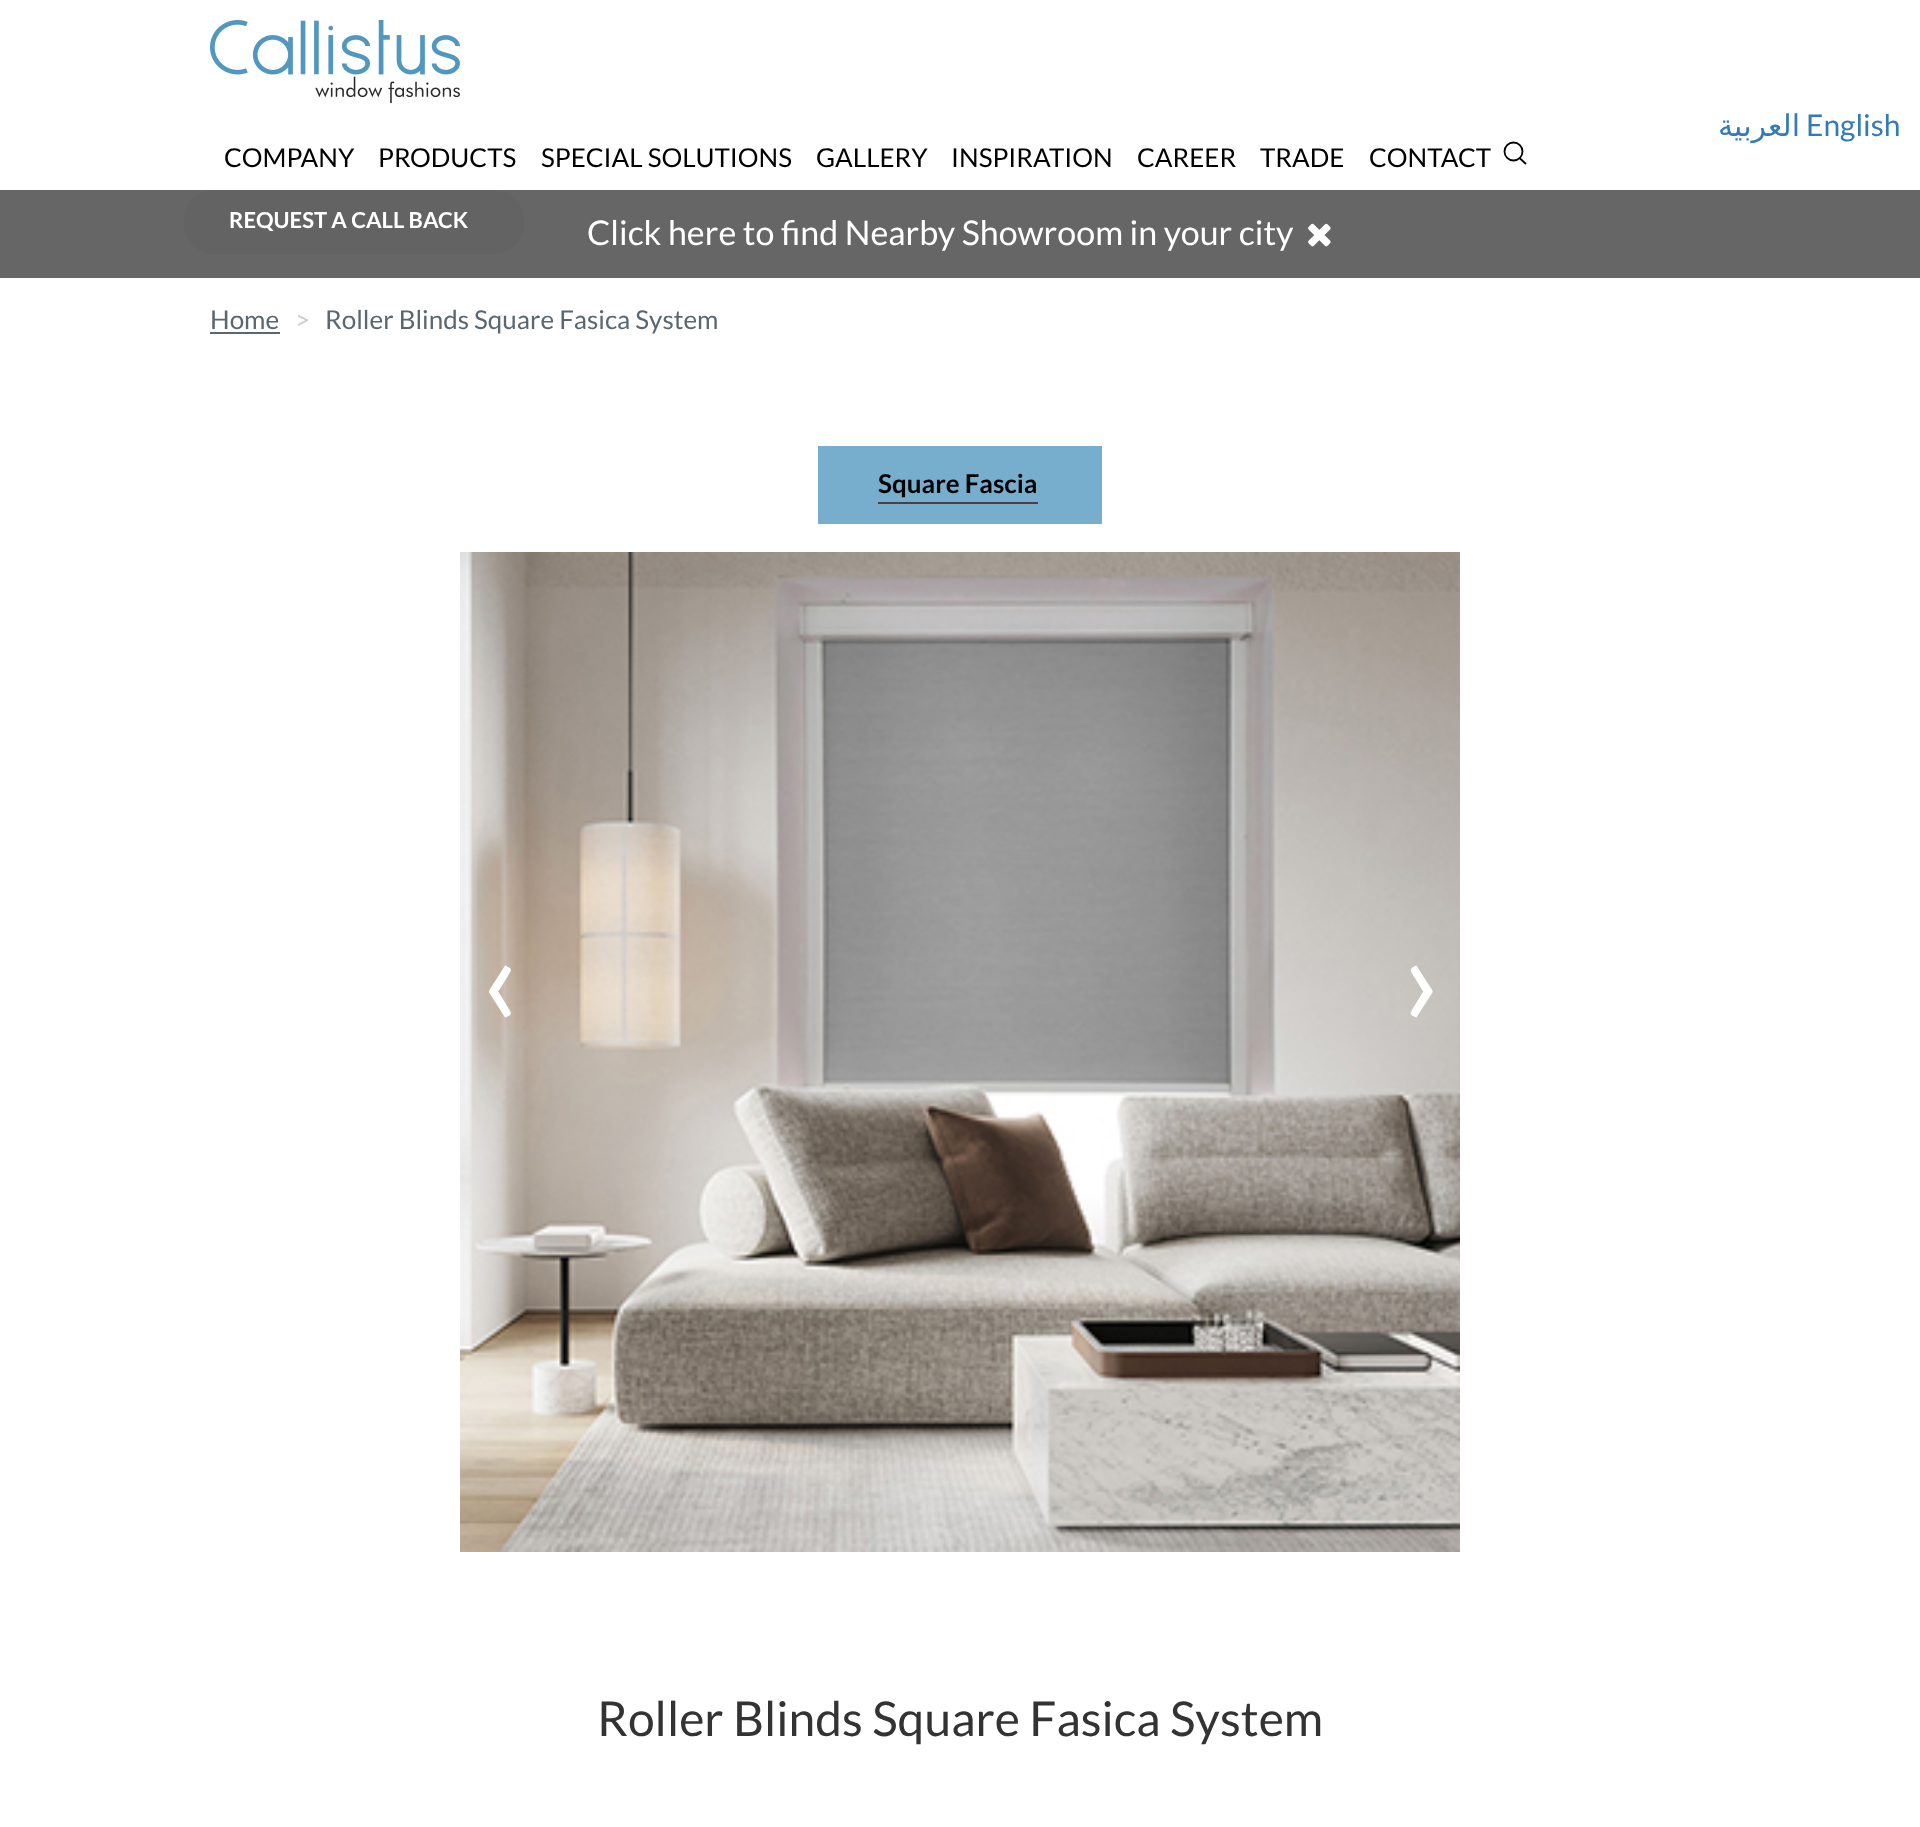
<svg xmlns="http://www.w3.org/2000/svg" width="1920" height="1827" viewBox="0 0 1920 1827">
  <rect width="100%" height="100%" fill="rgb(255,255,255)"/>
  <image x="210" y="20" width="250" height="84" href="pic1.png"/>
  <text x="1800" y="136" font-family="DejaVu Sans" font-size="30" direction="rtl" fill="rgb(51,122,183)">العربية</text>
  <text x="1806" y="136" font-family="Lato" font-size="30" fill="rgb(51,122,183)">English</text>
  <g font-family="Lato" font-size="26" fill="rgb(0,0,0)">
    <text x="224" y="167">COMPANY</text>
    <text x="378" y="167">PRODUCTS</text>
    <text x="541" y="167">SPECIAL SOLUTIONS</text>
    <text x="816" y="167">GALLERY</text>
    <text x="951" y="167">INSPIRATION</text>
    <text x="1137" y="167">CAREER</text>
    <text x="1260" y="167">TRADE</text>
    <text x="1369" y="167">CONTACT</text>
  </g>
  <circle cx="1513.5" cy="151.5" r="9" fill="none" stroke="rgb(0,0,0)" stroke-width="1.8"/>
  <path d="M1526 164L1519.5 158" fill="none" stroke="rgb(0,0,0)" stroke-width="1.8"/>
  <rect x="0" y="190" width="1920" height="88" fill="rgb(102,102,102)"/>
  <rect x="184" y="190" width="340" height="64" rx="30" fill="rgb(99,99,99)"/>
  <text x="229" y="228" font-family="Lato" font-size="22" font-weight="bold" fill="rgb(255,255,255)">REQUEST A CALL BACK</text>
  <text x="587" y="245" font-family="Lato" font-size="34" fill="rgb(255,255,255)">Click here to find Nearby Showroom in your city</text>
  <image x="1308" y="223" width="23" height="24" href="pic2.png"/>
  <text x="210" y="329" font-family="Lato" font-size="26" fill="rgb(91,103,112)">Home</text>
  <rect x="210" y="332" width="70" height="2" fill="rgb(91,103,112)"/>
  <text x="295" y="329" font-family="Lato" font-size="26" fill="rgb(204,204,204)">&gt;</text>
  <text x="325" y="329" font-family="Lato" font-size="26" fill="rgb(91,103,112)">Roller Blinds Square Fasica System</text>
  <rect x="818" y="446" width="284" height="78" fill="rgb(119,174,206)"/>
  <rect x="878" y="502" width="160" height="2" fill="rgb(78,63,62)"/>
  <text x="878" y="493" font-family="Lato" font-size="26" font-weight="bold" fill="rgb(0,0,0)">Square Fascia</text>
  <image x="460" y="552" width="1000" height="1000" href="pic3.png"/>
  <g font-family="Lato" font-size="130" fill="rgb(255,255,255)">
    <text x="480" y="1026">‹</text>
    <text x="1401" y="1026">›</text>
  </g>
  <text x="597" y="1736" font-family="Lato" font-size="48" fill="rgb(51,51,51)">Roller Blinds Square Fasica System</text>
</svg>
